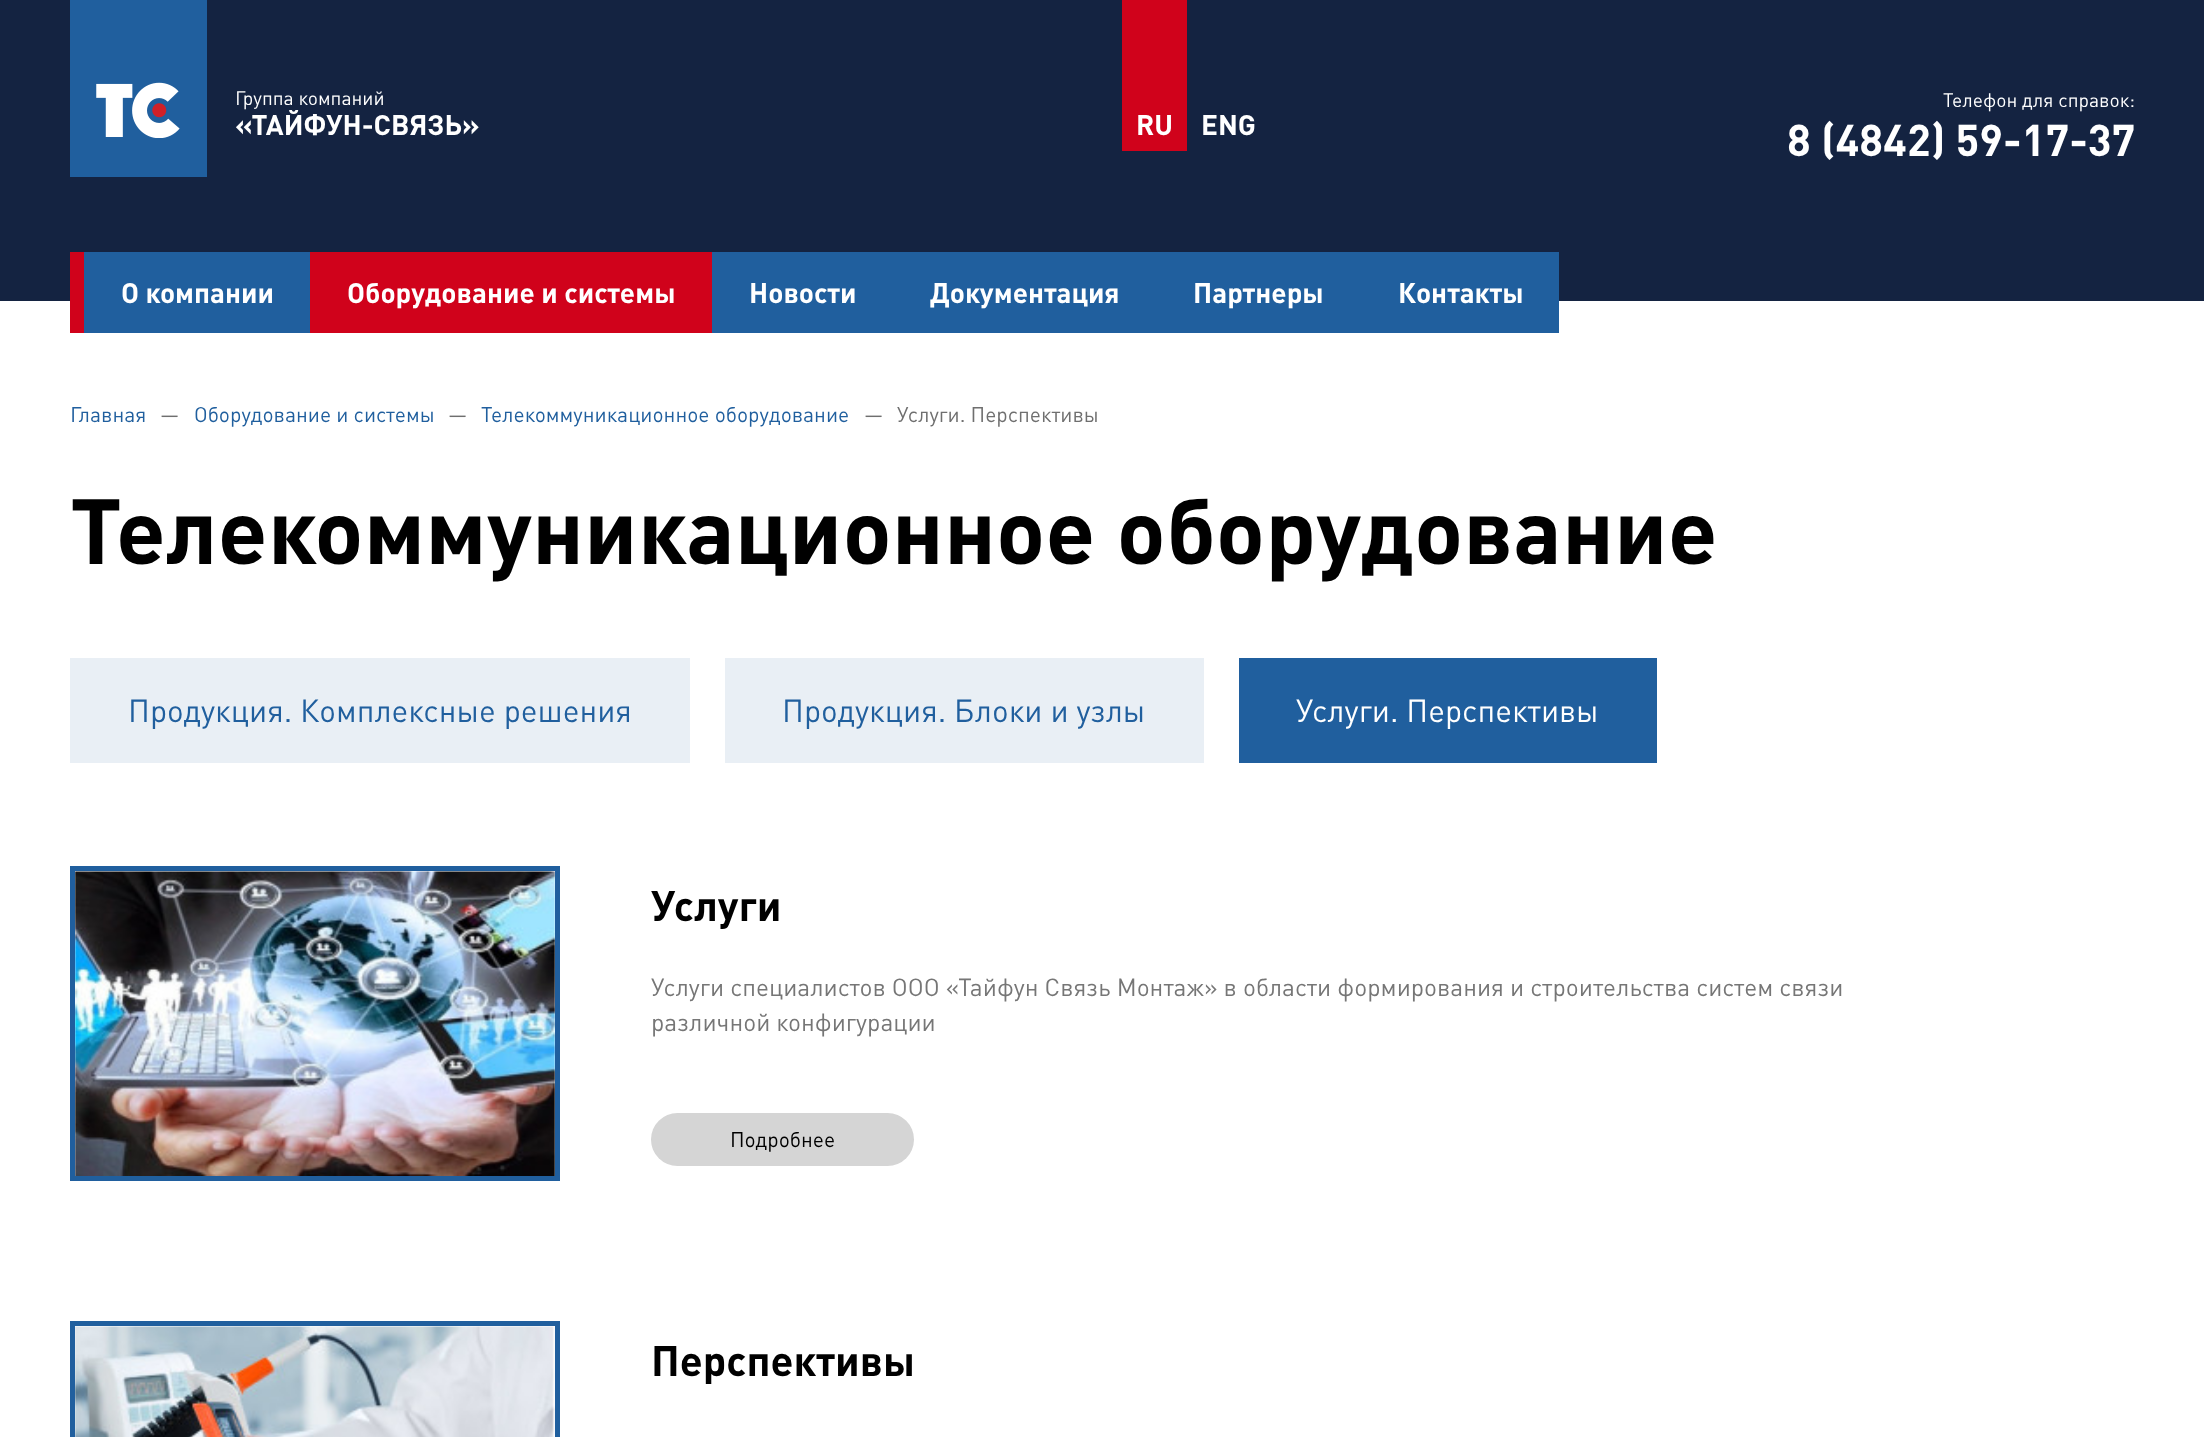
<svg xmlns="http://www.w3.org/2000/svg" width="2204" height="1437" viewBox="0 0 2204 1437">
  <rect width="100%" height="100%" fill="rgb(255,255,255)"/>
  <rect x="0" y="0" width="2204" height="301" fill="rgb(20,35,65)"/>
  <rect x="70" y="0" width="137" height="177" fill="rgb(32,95,158)"/>
  <image x="96" y="82" width="84" height="56" href="pic1.png"/>
  <text x="235" y="105" font-family="DIN" font-size="19.25" fill="rgb(255,255,255)">Группа компаний</text>
  <text x="235" y="135" font-family="DIN" font-size="28" font-weight="bold" fill="rgb(255,255,255)">«ТАЙФУН-СВЯЗЬ»</text>
  <rect x="1122" y="0" width="65" height="151" fill="rgb(208,2,27)"/>
  <g font-family="DIN" font-size="28" font-weight="bold" fill="rgb(255,255,255)">
    <text x="1136" y="135">RU</text>
    <text x="1201" y="135">ENG</text>
  </g>
  <text x="1943" y="107" font-family="DIN" font-size="19.25" fill="rgb(255,255,255)">Телефон для справок:</text>
  <text x="1787" y="156" font-family="DIN" font-size="43.75" font-weight="bold" fill="rgb(255,255,255)">8 (4842) 59-17-37</text>
  <rect x="84" y="252" width="1475" height="81" fill="rgb(32,95,158)"/>
  <rect x="70" y="252" width="14" height="81" fill="rgb(208,2,27)"/>
  <text x="121" y="303" font-family="DIN" font-size="28" font-weight="bold" fill="rgb(255,255,255)">О компании</text>
  <rect x="310" y="252" width="402" height="81" fill="rgb(208,2,27)"/>
  <g font-family="DIN" font-size="28" font-weight="bold" fill="rgb(255,255,255)">
    <text x="347" y="303">Оборудование и системы</text>
    <text x="749" y="303">Новости</text>
    <text x="930" y="303">Документация</text>
    <text x="1193" y="303">Партнеры</text>
    <text x="1398" y="303">Контакты</text>
  </g>
  <text x="70" y="422" font-family="DIN" font-size="21" fill="rgb(32,95,158)">Главная</text>
  <text x="160" y="422" font-family="DIN" font-size="21" fill="rgb(111,111,111)">—</text>
  <text x="194" y="422" font-family="DIN" font-size="21" fill="rgb(32,95,158)">Оборудование и системы</text>
  <text x="448" y="422" font-family="DIN" font-size="21" fill="rgb(111,111,111)">—</text>
  <text x="481" y="422" font-family="DIN" font-size="21" fill="rgb(32,95,158)">Телекоммуникационное оборудование</text>
  <g font-family="DIN" font-size="21" fill="rgb(111,111,111)">
    <text x="864" y="422">—</text>
    <text x="897" y="422">Услуги. Перспективы</text>
  </g>
  <text x="70" y="564" font-family="DIN" font-size="91" font-weight="bold" fill="rgb(0,0,0)">Телекоммуникационное оборудование</text>
  <rect x="70" y="658" width="620" height="105" fill="rgb(233,239,245)"/>
  <text x="128" y="722" font-family="DIN" font-size="31.5" fill="rgb(32,95,158)">Продукция. Комплексные решения</text>
  <rect x="725" y="658" width="479" height="105" fill="rgb(233,239,245)"/>
  <text x="782" y="722" font-family="DIN" font-size="31.5" fill="rgb(32,95,158)">Продукция. Блоки и узлы</text>
  <rect x="1239" y="658" width="418" height="105" fill="rgb(32,95,158)"/>
  <text x="1296" y="722" font-family="DIN" font-size="31.5" fill="rgb(255,255,255)">Услуги. Перспективы</text>
  <rect x="72.5" y="868.5" width="485" height="310" fill="none" stroke="rgb(32,95,158)" stroke-width="5"/>
  <image x="75" y="871" width="480" height="305" href="pic2.png"/>
  <text x="651" y="921" font-family="DIN" font-size="42" font-weight="bold" fill="rgb(0,0,0)">Услуги</text>
  <g font-family="DIN" font-size="24.5" fill="rgb(118,118,118)">
    <text>
      <tspan x="651" y="996">Услуги специалистов ООО «Тайфун Связь Монтаж» в области формирования и строительства систем связи</tspan>
      <tspan x="651" y="1031">различной конфигурации</tspan>
    </text>
  </g>
  <rect x="651" y="1113" width="263" height="53" rx="26.5" fill="rgb(213,213,213)"/>
  <text x="730" y="1147" font-family="DIN" font-size="21" fill="rgb(0,0,0)">Подробнее</text>
  <rect x="72.5" y="1323.5" width="485" height="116" fill="none" stroke="rgb(32,95,158)" stroke-width="5"/>
  <image x="75" y="1326" width="480" height="111" href="pic3.png"/>
  <text x="651" y="1376" font-family="DIN" font-size="42" font-weight="bold" fill="rgb(0,0,0)">Перспективы</text>
</svg>
